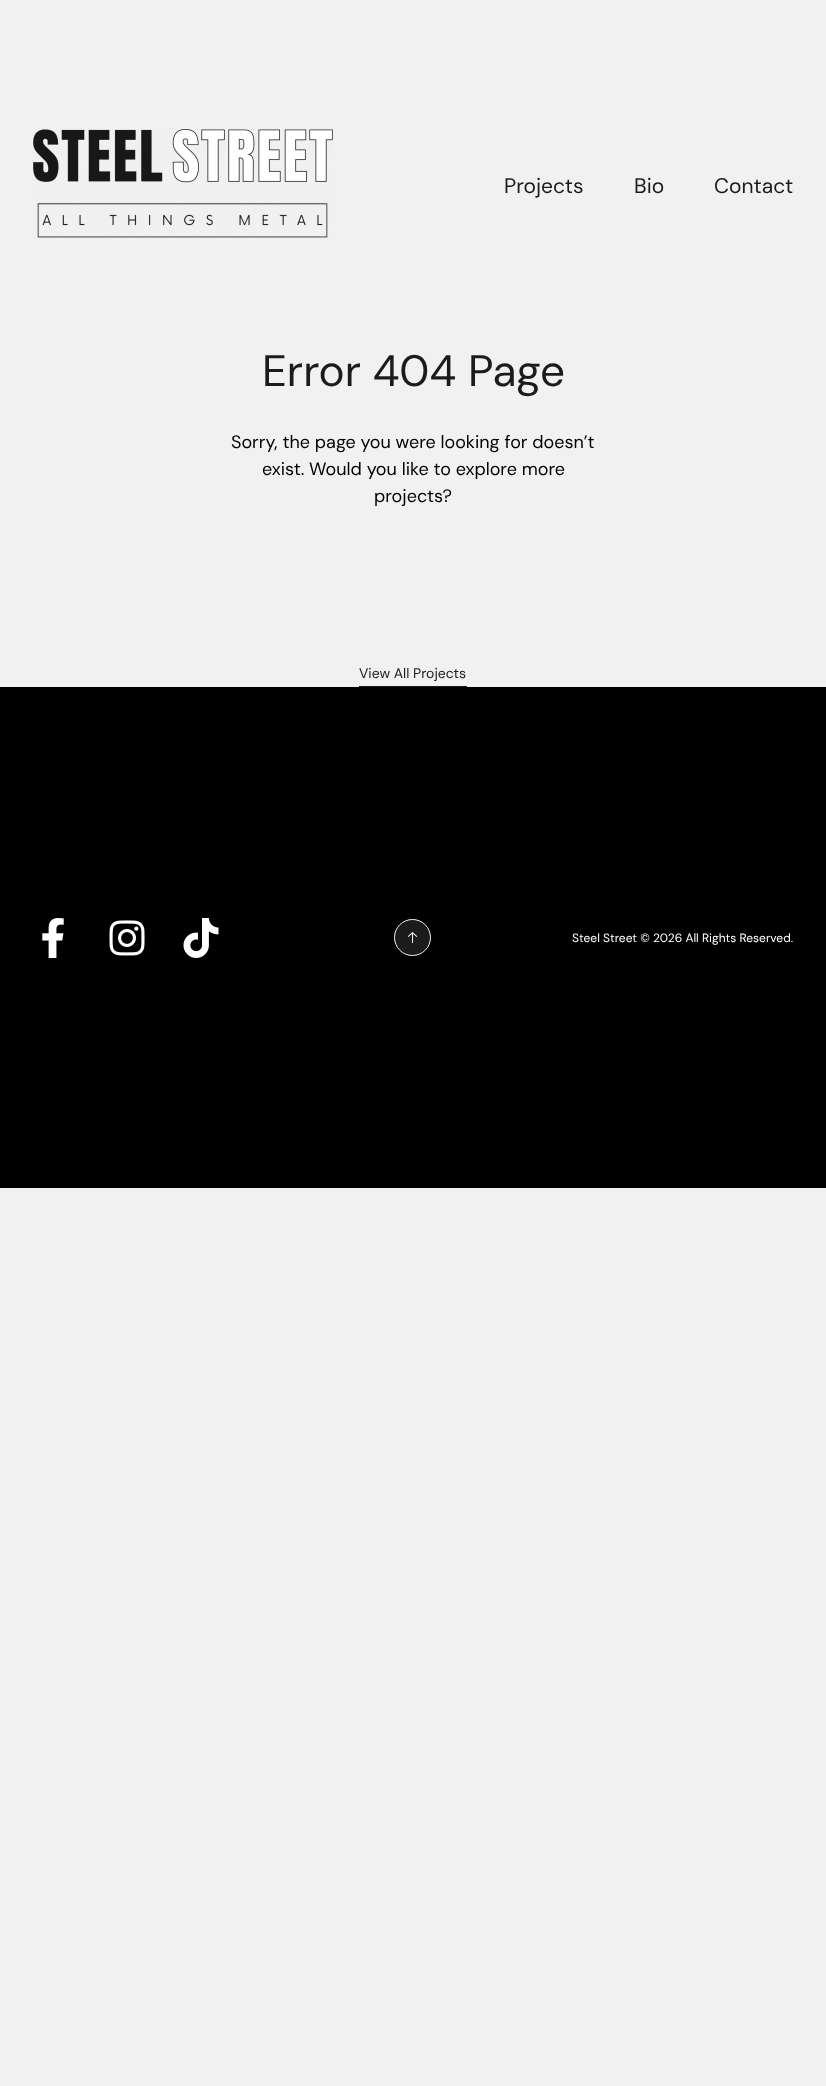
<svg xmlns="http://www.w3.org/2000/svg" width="826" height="2086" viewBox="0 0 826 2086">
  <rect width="100%" height="100%" fill="rgb(241,241,241)"/>
  <image x="33" y="129" width="300" height="109" href="pic1.png"/>
  <g font-family="DM Sans" font-size="21" fill="rgb(27,27,27)">
    <text x="504" y="193">Projects</text>
    <text x="634" y="193">Bio</text>
    <text x="714" y="193">Contact</text>
  </g>
  <text x="262" y="386" font-family="DM Sans" font-size="44" fill="rgb(27,27,27)">Error 404 Page</text>
  <g font-family="DM Sans" font-size="18" fill="rgb(0,0,0)">
    <text x="231" y="448">Sorry, the page you were looking for doesn’t</text>
    <text x="262" y="475">exist. Would you like to explore more</text>
    <text x="374" y="502">projects?</text>
  </g>
  <rect x="359" y="686" width="108" height="1" fill="rgb(27,27,27)"/>
  <text x="359" y="678" font-family="DM Sans" font-size="14" fill="rgb(27,27,27)">View All Projects</text>
  <rect x="0" y="687" width="826" height="501" fill="rgb(0,0,0)"/>
  <image x="42" y="918" width="22" height="40" href="pic2.png"/>
  <image x="109" y="920" width="36" height="36" href="pic3.png"/>
  <image x="183" y="918" width="36" height="40" href="pic4.png"/>
  <circle cx="412.5" cy="937.5" r="18" fill="rgb(27,27,27)" stroke="rgb(241,241,241)"/>
  <image x="407" y="932" width="11" height="11" href="pic5.png"/>
  <text x="572" y="942" font-family="DM Sans" font-size="12" fill="rgb(255,255,255)">Steel Street © 2026 All Rights Reserved.</text>
</svg>
